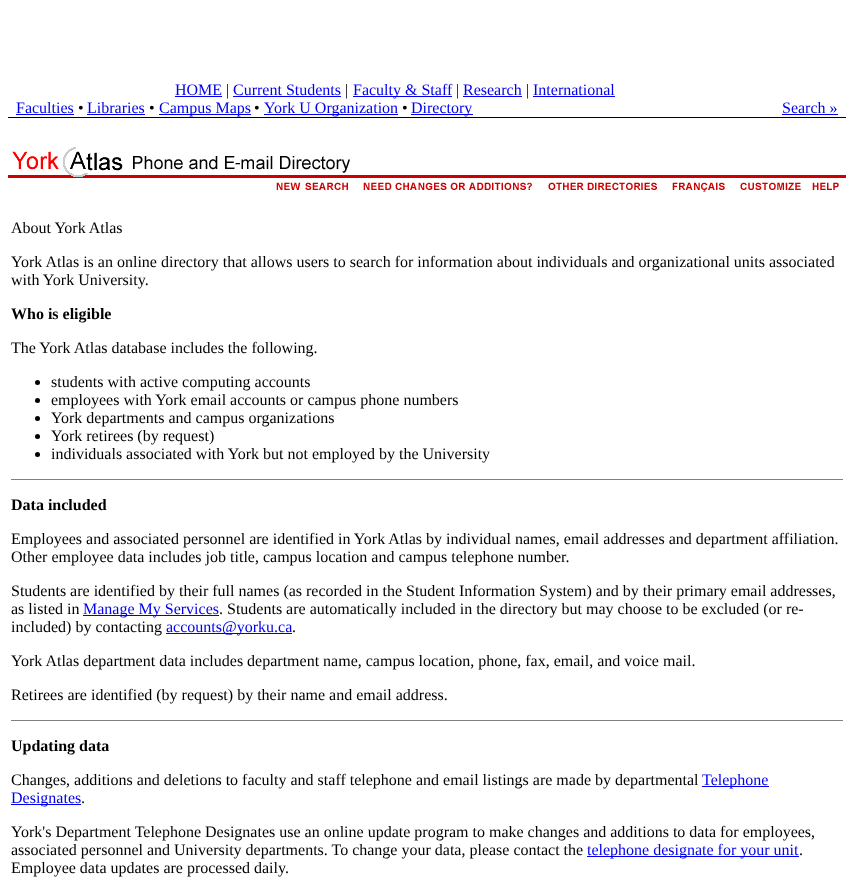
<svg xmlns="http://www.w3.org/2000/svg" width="854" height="895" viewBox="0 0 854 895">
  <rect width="100%" height="100%" fill="rgb(255,255,255)"/>
  <text x="175" y="95" font-family="Liberation Serif" font-size="16" fill="rgb(0,0,238)">HOME</text>
  <rect x="175" y="96" width="47" height="1" fill="rgb(0,0,238)"/>
  <text x="226" y="95" font-family="Liberation Serif" font-size="16" fill="rgb(0,0,0)">|</text>
  <text x="233" y="95" font-family="Liberation Serif" font-size="16" fill="rgb(0,0,238)">Current Students</text>
  <rect x="233" y="96" width="108" height="1" fill="rgb(0,0,238)"/>
  <text x="345" y="95" font-family="Liberation Serif" font-size="16" fill="rgb(0,0,0)">|</text>
  <rect x="353" y="96" width="99" height="1" fill="rgb(0,0,238)"/>
  <text x="353" y="95" font-family="Liberation Serif" font-size="16" fill="rgb(0,0,238)">Faculty &amp; Staff</text>
  <text x="456" y="95" font-family="Liberation Serif" font-size="16" fill="rgb(0,0,0)">|</text>
  <text x="463" y="95" font-family="Liberation Serif" font-size="16" fill="rgb(0,0,238)">Research</text>
  <rect x="463" y="96" width="59" height="1" fill="rgb(0,0,238)"/>
  <text x="526" y="95" font-family="Liberation Serif" font-size="16" fill="rgb(0,0,0)">|</text>
  <text x="533" y="95" font-family="Liberation Serif" font-size="16" fill="rgb(0,0,238)">International</text>
  <rect x="533" y="96" width="82" height="1" fill="rgb(0,0,238)"/>
  <text x="16" y="113" font-family="Liberation Serif" font-size="16" fill="rgb(0,0,238)">Faculties</text>
  <rect x="16" y="114" width="58" height="1" fill="rgb(0,0,238)"/>
  <text x="78" y="113" font-family="Liberation Serif" font-size="16" fill="rgb(0,0,0)">•</text>
  <text x="87" y="113" font-family="Liberation Serif" font-size="16" fill="rgb(0,0,238)">Libraries</text>
  <rect x="87" y="114" width="58" height="1" fill="rgb(0,0,238)"/>
  <text x="149" y="113" font-family="Liberation Serif" font-size="16" fill="rgb(0,0,0)">•</text>
  <rect x="159" y="114" width="92" height="1" fill="rgb(0,0,238)"/>
  <text x="159" y="113" font-family="Liberation Serif" font-size="16" fill="rgb(0,0,238)">Campus Maps</text>
  <text x="254" y="113" font-family="Liberation Serif" font-size="16" fill="rgb(0,0,0)">•</text>
  <rect x="264" y="114" width="134" height="1" fill="rgb(0,0,238)"/>
  <text x="264" y="113" font-family="Liberation Serif" font-size="16" fill="rgb(0,0,238)">York U Organization</text>
  <text x="402" y="113" font-family="Liberation Serif" font-size="16" fill="rgb(0,0,0)">•</text>
  <rect x="411" y="114" width="62" height="1" fill="rgb(0,0,238)"/>
  <g font-family="Liberation Serif" font-size="16" fill="rgb(0,0,238)">
    <text x="411" y="113">Directory</text>
    <text x="782" y="113">Search »</text>
  </g>
  <rect x="782" y="114" width="56" height="1" fill="rgb(0,0,238)"/>
  <rect x="8" y="117" width="838" height="1" fill="rgb(0,0,0)"/>
  <rect x="8" y="175" width="838" height="3" fill="rgb(204,0,0)"/>
  <image x="12" y="147" width="338" height="30" href="pic1.png"/>
  <image x="276" y="182" width="72" height="8" href="pic2.png"/>
  <image x="363" y="182" width="169" height="8" href="pic3.png"/>
  <image x="548" y="182" width="109" height="8" href="pic4.png"/>
  <image x="672" y="182" width="53" height="10" href="pic5.png"/>
  <image x="740" y="182" width="61" height="8" href="pic6.png"/>
  <image x="812" y="182" width="27" height="8" href="pic7.png"/>
  <g font-family="Liberation Serif" font-size="16" fill="rgb(0,0,0)">
    <text x="11" y="233">About York Atlas</text>
    <text>
      <tspan x="11" y="267">York Atlas is an online directory that allows users to search for information about individuals and organizational units associated</tspan>
      <tspan x="11" y="285">with York University.</tspan>
    </text>
  </g>
  <text x="11" y="319" font-family="Liberation Serif" font-size="16" font-weight="bold" fill="rgb(0,0,0)">Who is eligible</text>
  <text x="11" y="353" font-family="Liberation Serif" font-size="16" fill="rgb(0,0,0)">The York Atlas database includes the following.</text>
  <circle cx="37.5" cy="382.5" r="2.5" fill="rgb(0,0,0)"/>
  <text x="51" y="387" font-family="Liberation Serif" font-size="16" fill="rgb(0,0,0)">students with active computing accounts</text>
  <circle cx="37.5" cy="400.5" r="2.5" fill="rgb(0,0,0)"/>
  <text x="51" y="405" font-family="Liberation Serif" font-size="16" fill="rgb(0,0,0)">employees with York email accounts or campus phone numbers</text>
  <circle cx="37.5" cy="418.5" r="2.5" fill="rgb(0,0,0)"/>
  <text x="51" y="423" font-family="Liberation Serif" font-size="16" fill="rgb(0,0,0)">York departments and campus organizations</text>
  <circle cx="37.5" cy="436.5" r="2.5" fill="rgb(0,0,0)"/>
  <text x="51" y="441" font-family="Liberation Serif" font-size="16" fill="rgb(0,0,0)">York retirees (by request)</text>
  <circle cx="37.5" cy="454.5" r="2.5" fill="rgb(0,0,0)"/>
  <text x="51" y="459" font-family="Liberation Serif" font-size="16" fill="rgb(0,0,0)">individuals associated with York but not employed by the University</text>
  <rect x="11" y="479" width="832" height="1" fill="rgb(128,128,128)"/>
  <text x="11" y="510" font-family="Liberation Serif" font-size="16" font-weight="bold" fill="rgb(0,0,0)">Data included</text>
  <g font-family="Liberation Serif" font-size="16" fill="rgb(0,0,0)">
    <text>
      <tspan x="11" y="544">Employees and associated personnel are identified in York Atlas by individual names, email addresses and department affiliation.</tspan>
      <tspan x="11" y="562">Other employee data includes job title, campus location and campus telephone number.</tspan>
    </text>
    <text>
      <tspan x="11" y="596">Students are identified by their full names (as recorded in the Student Information System) and by their primary email addresses,</tspan>
      <tspan x="11" y="614">as listed in</tspan>
    </text>
  </g>
  <rect x="83" y="615" width="136" height="1" fill="rgb(0,0,238)"/>
  <text x="83" y="614" font-family="Liberation Serif" font-size="16" fill="rgb(0,0,238)">Manage My Services</text>
  <g font-family="Liberation Serif" font-size="16" fill="rgb(0,0,0)">
    <text x="219" y="614">. Students are automatically included in the directory but may choose to be excluded (or re-</text>
    <text x="11" y="632">included) by contacting</text>
  </g>
  <rect x="166" y="633" width="126" height="1" fill="rgb(0,0,238)"/>
  <text x="166" y="632" font-family="Liberation Serif" font-size="16" fill="rgb(0,0,238)">accounts@yorku.ca</text>
  <g font-family="Liberation Serif" font-size="16" fill="rgb(0,0,0)">
    <text x="292" y="632">.</text>
    <text x="11" y="666">York Atlas department data includes department name, campus location, phone, fax, email, and voice mail.</text>
    <text x="11" y="700">Retirees are identified (by request) by their name and email address.</text>
  </g>
  <rect x="11" y="720" width="832" height="1" fill="rgb(128,128,128)"/>
  <text x="11" y="751" font-family="Liberation Serif" font-size="16" font-weight="bold" fill="rgb(0,0,0)">Updating data</text>
  <text x="11" y="785" font-family="Liberation Serif" font-size="16" fill="rgb(0,0,0)">Changes, additions and deletions to faculty and staff telephone and email listings are made by departmental</text>
  <rect x="702" y="786" width="67" height="1" fill="rgb(0,0,238)"/>
  <text x="702" y="785" font-family="Liberation Serif" font-size="16" fill="rgb(0,0,238)">Telephone</text>
  <rect x="11" y="804" width="70" height="1" fill="rgb(0,0,238)"/>
  <text x="11" y="803" font-family="Liberation Serif" font-size="16" fill="rgb(0,0,238)">Designates</text>
  <g font-family="Liberation Serif" font-size="16" fill="rgb(0,0,0)">
    <text x="81" y="803">.</text>
    <text>
      <tspan x="11" y="837">York's Department Telephone Designates use an online update program to make changes and additions to data for employees,</tspan>
      <tspan x="11" y="855">associated personnel and University departments. To change your data, please contact the</tspan>
    </text>
  </g>
  <rect x="587" y="856" width="212" height="1" fill="rgb(0,0,238)"/>
  <text x="587" y="855" font-family="Liberation Serif" font-size="16" fill="rgb(0,0,238)">telephone designate for your unit</text>
  <g font-family="Liberation Serif" font-size="16" fill="rgb(0,0,0)">
    <text x="799" y="855">.</text>
    <text x="11" y="873">Employee data updates are processed daily.</text>
  </g>
</svg>
